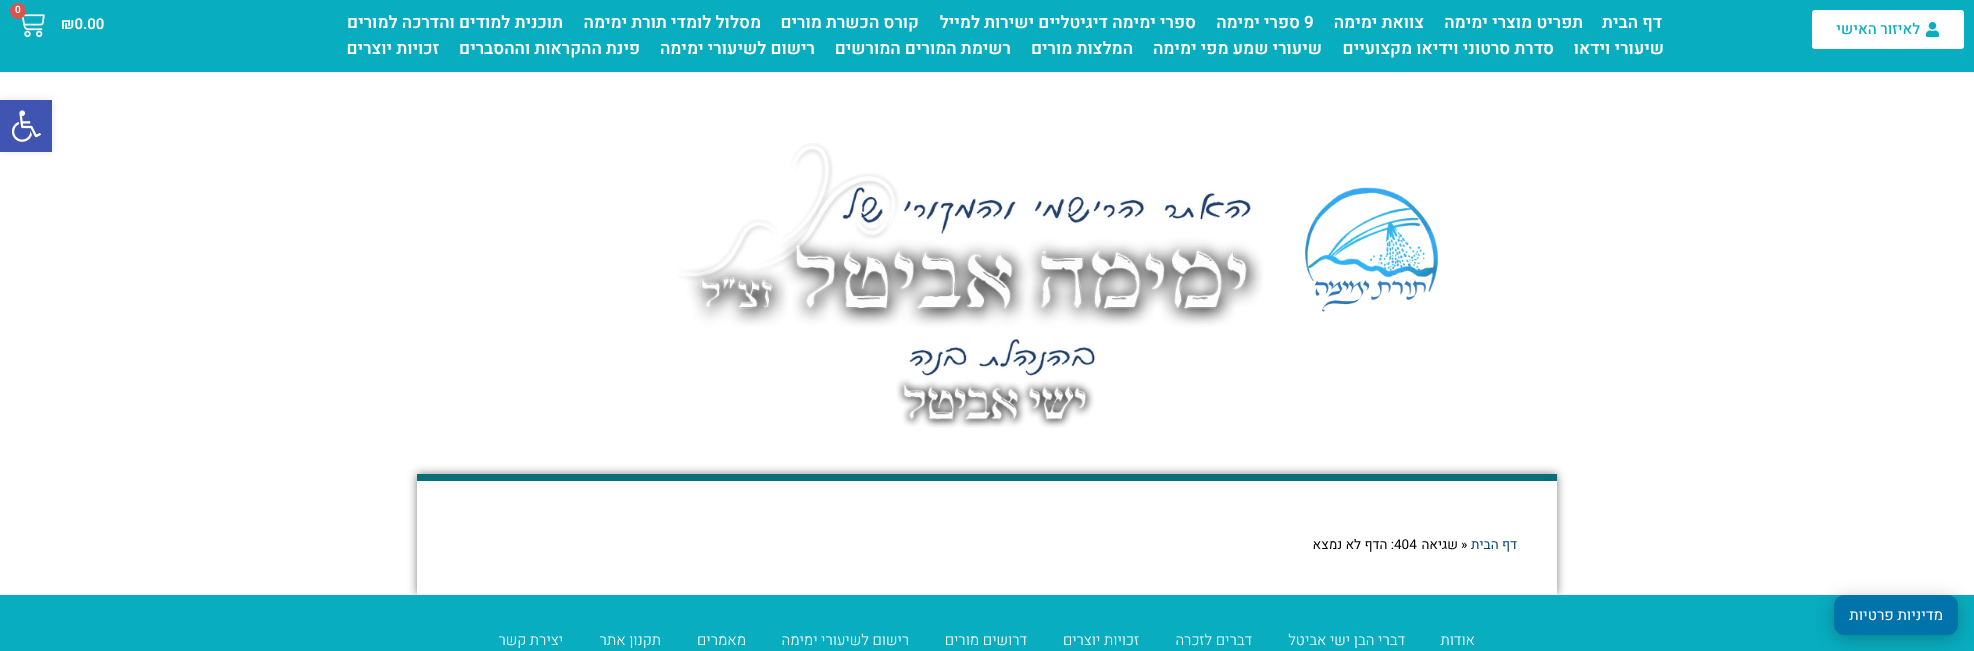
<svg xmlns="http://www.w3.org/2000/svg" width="1974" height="651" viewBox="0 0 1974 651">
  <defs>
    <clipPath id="clip1"><path d="M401 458H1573V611H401ZM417 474H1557V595H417Z" clip-rule="evenodd"/></clipPath>
  </defs>
  <rect width="100%" height="100%" fill="rgb(255,255,255)"/>
  <rect x="0" y="0" width="1974" height="72" fill="rgb(9,173,192)"/>
  <rect x="1812" y="10" width="152" height="39" rx="3" fill="rgb(255,255,255)"/>
  <image x="1925" y="22" width="15" height="15" href="pic1.png"/>
  <text x="1920" y="34" font-family="Heebo" font-size="15" font-weight="500" direction="rtl" fill="rgb(9,173,192)">לאיזור האישי</text>
  <g font-family="Heebo" font-size="17" font-weight="600" direction="rtl" fill="rgb(255,255,255)">
    <text x="1662" y="28">דף הבית</text>
    <text x="1583" y="28">תפריט מוצרי ימימה</text>
    <text x="1424" y="28">צוואת ימימה</text>
  </g>
  <text x="1304" y="28" font-family="Heebo" font-size="17" font-weight="600" fill="rgb(255,255,255)">9</text>
  <g font-family="Heebo" font-size="17" font-weight="600" direction="rtl" fill="rgb(255,255,255)">
    <text x="1300" y="28">ספרי ימימה</text>
    <text x="1196" y="28">ספרי ימימה דיגיטליים ישירות למייל</text>
    <text x="919" y="28">קורס הכשרת מורים</text>
    <text x="761" y="28">מסלול לומדי תורת ימימה</text>
    <text x="563" y="28">תוכנית למודים והדרכה למורים</text>
    <text x="1664" y="54">שיעורי וידאו</text>
    <text x="1554" y="54">סדרת סרטוני וידיאו מקצועיים</text>
    <text x="1322" y="54">שיעורי שמע מפי ימימה</text>
    <text x="1133" y="54">המלצות מורים</text>
    <text x="1011" y="54">רשימת המורים המורשים</text>
    <text x="815" y="54">רישום לשיעורי ימימה</text>
    <text x="640" y="54">פינת ההקראות וההסברים</text>
    <text x="439" y="54">זכויות יוצרים</text>
  </g>
  <image x="21" y="14" width="24" height="24" href="pic2.png"/>
  <circle cx="18" cy="11" r="8" fill="rgb(217,83,79)"/>
  <text x="15" y="13" font-family="Heebo" font-size="10" font-weight="600" fill="rgb(255,255,255)">0</text>
  <text x="61" y="29" font-family="Heebo" font-size="15" font-weight="600" fill="rgb(255,255,255)">₪0.00</text>
  <image x="678" y="143" width="760" height="285" href="pic3.png"/>
  <rect x="0" y="100" width="52" height="52" fill="rgba(0,0,0,0.1)" filter="blur(5px)"/>
  <rect x="0" y="100" width="52" height="52" fill="rgb(64,84,178)"/>
  <image x="11" y="110" width="30" height="32" href="pic4.png"/>
  <g clip-path="url(#clip1)">
    <rect x="417" y="474" width="1140" height="121" fill="rgba(0,0,0,0.5)" filter="blur(5px)"/>
  </g>
  <rect x="417" y="474" width="1140" height="7" fill="rgb(10,110,121)"/>
  <text x="1517" y="549" font-family="Heebo" font-size="13.5" direction="rtl" fill="rgb(9,65,114)">דף הבית</text>
  <text x="1461" y="549" font-family="Heebo" font-size="13.5" fill="rgb(0,0,0)">»</text>
  <text x="1458" y="549" font-family="Heebo" font-size="13.5" direction="rtl" fill="rgb(0,0,0)">שגיאה</text>
  <text x="1394" y="549" font-family="Heebo" font-size="13.5" fill="rgb(0,0,0)">404</text>
  <text x="1394" y="549" font-family="Heebo" font-size="13.5" direction="rtl" fill="rgb(0,0,0)">: הדף לא נמצא</text>
  <rect x="0" y="595" width="1974" height="56" fill="rgb(9,173,192)"/>
  <rect x="1834" y="599" width="124" height="40" rx="10" fill="rgba(0,0,0,0.25)" filter="blur(9px)"/>
  <rect x="1834.5" y="595.5" width="123" height="39" rx="9.5" fill="rgb(0,115,170)" stroke="rgb(0,115,170)"/>
  <text x="1943" y="620" font-family="Heebo" font-size="15" direction="rtl" fill="rgb(255,255,255)">מדיניות פרטיות</text>
  <g font-family="Heebo" font-size="15" font-weight="300" direction="rtl" fill="rgb(255,255,255)">
    <text x="1475" y="645">אודות</text>
    <text x="1405" y="645">דברי הבן ישי אביטל</text>
    <text x="1252" y="645">דברים לזכרה</text>
    <text x="1139" y="645">זכויות יוצרים</text>
    <text x="1027" y="645">דרושים מורים</text>
    <text x="909" y="645">רישום לשיעורי ימימה</text>
    <text x="746" y="645">מאמרים</text>
    <text x="661" y="645">תקנון אתר</text>
    <text x="563" y="645">יצירת קשר</text>
  </g>
</svg>
